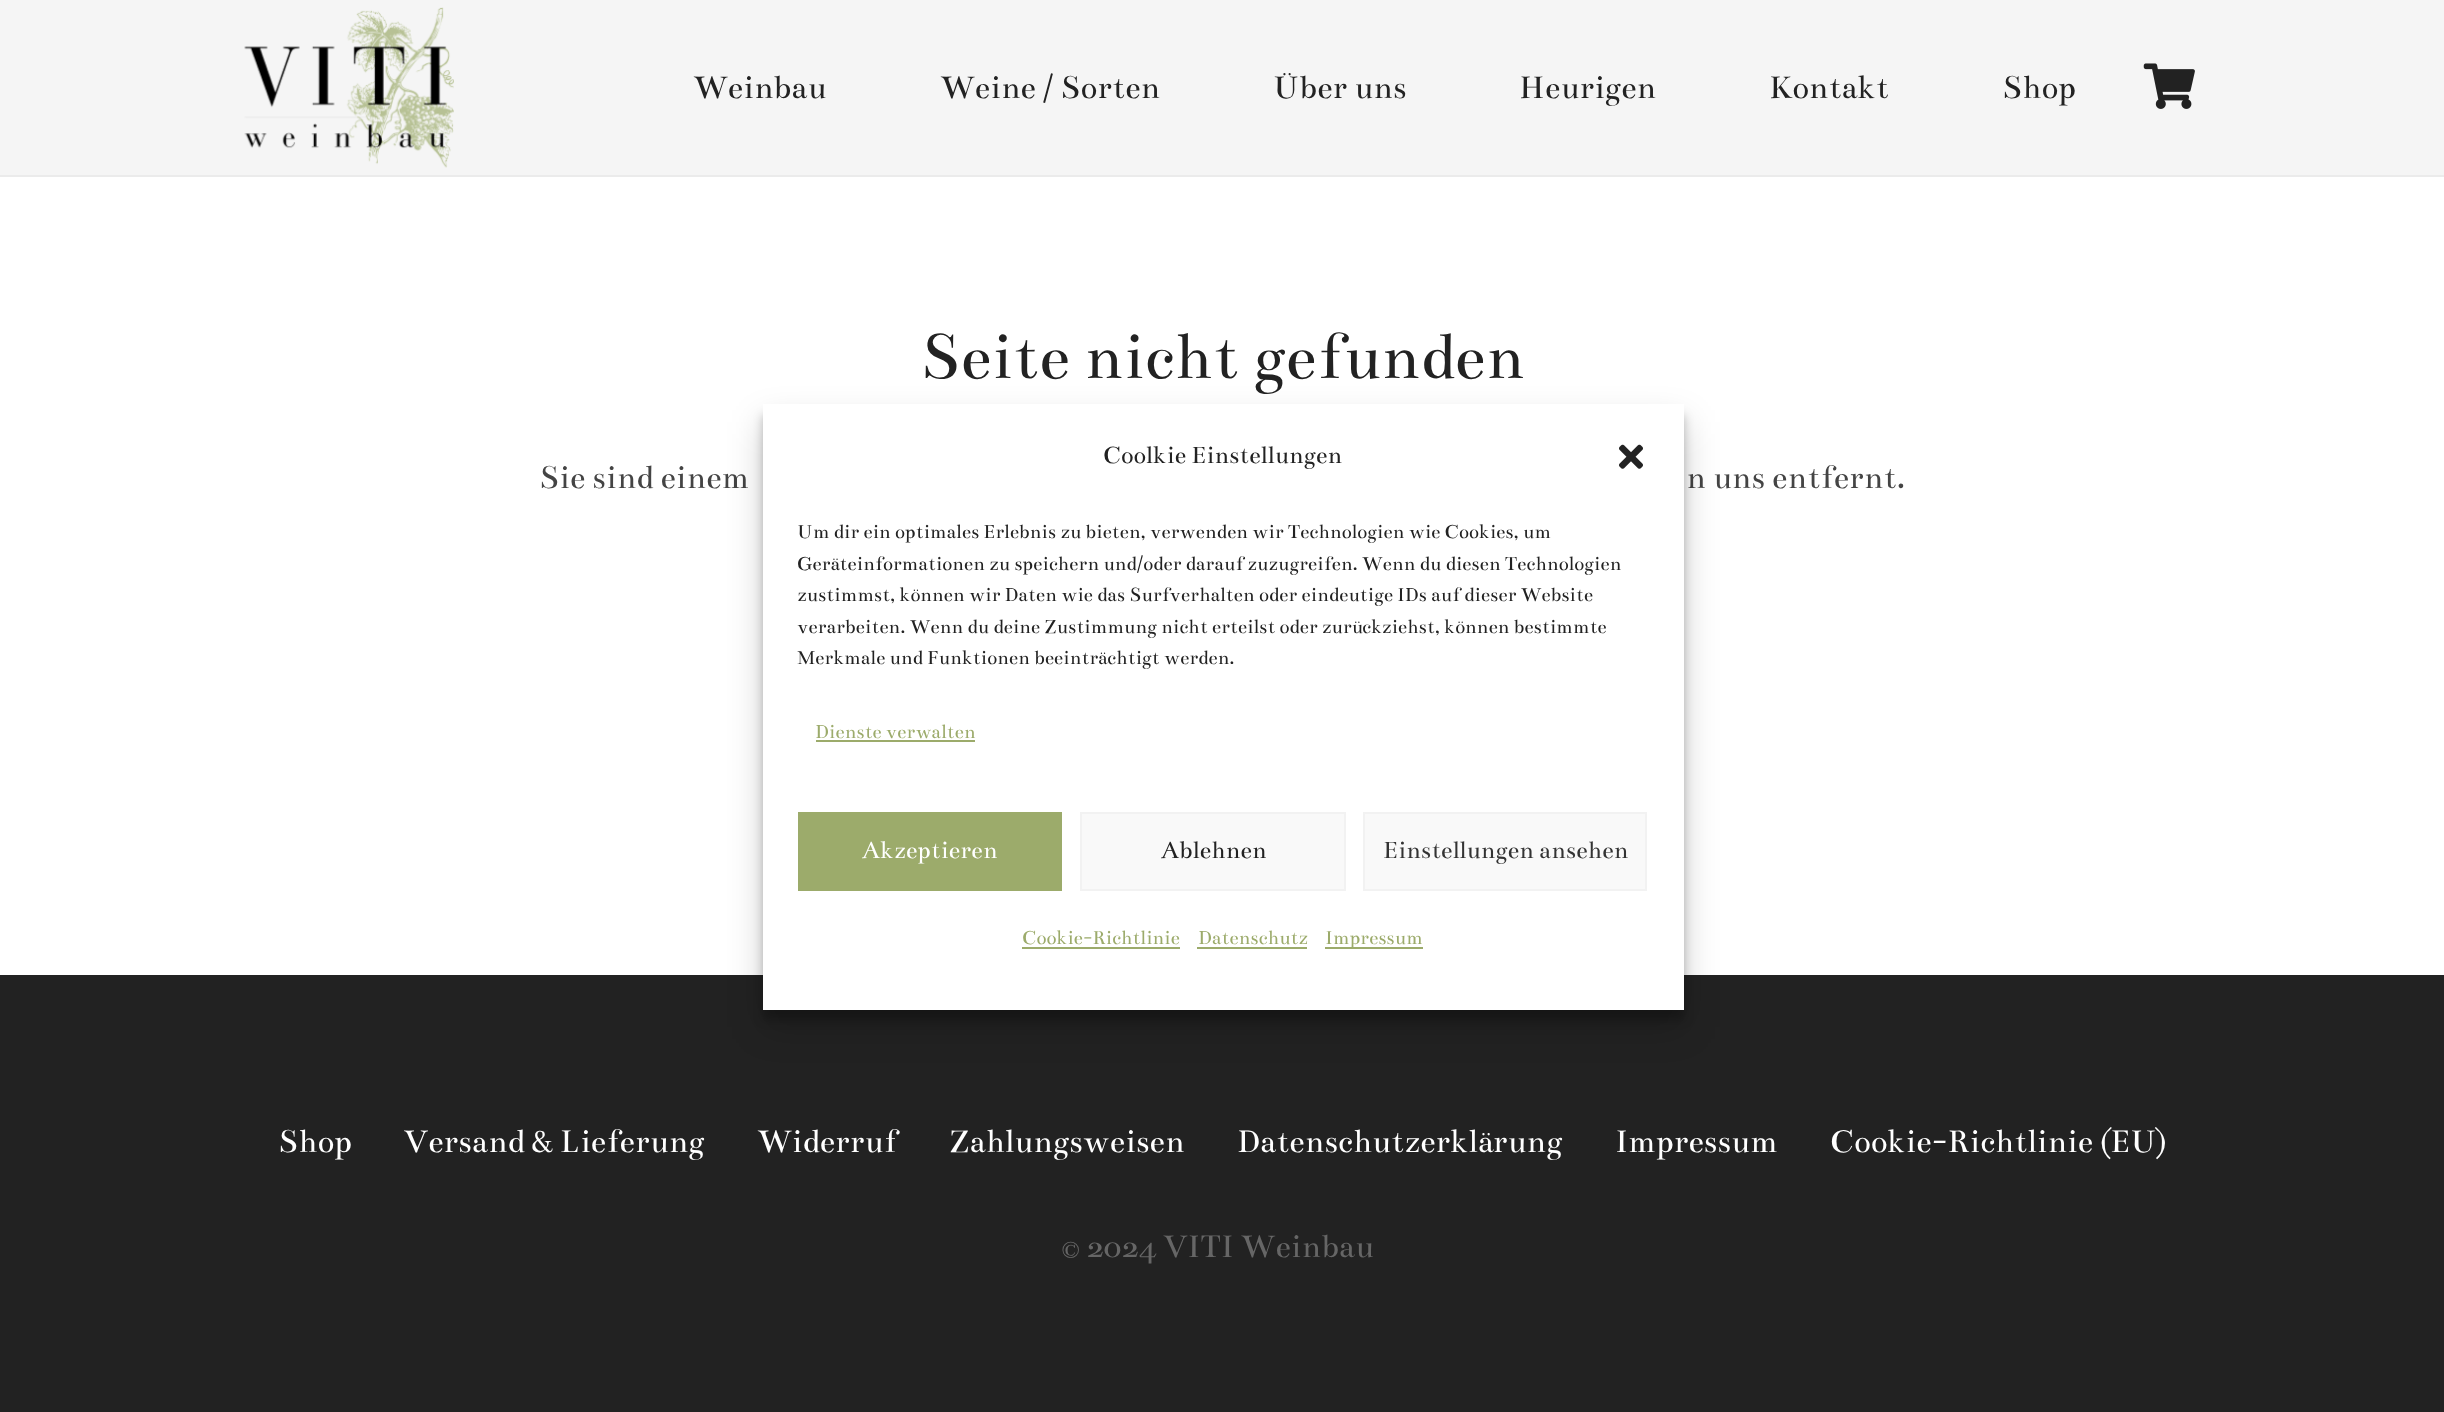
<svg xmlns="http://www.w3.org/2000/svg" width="2444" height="1412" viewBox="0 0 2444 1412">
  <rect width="100%" height="100%" fill="rgb(255,255,255)"/>
  <path d="M0 175V177H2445V2V175Z" fill="rgb(235,235,235)"/>
  <rect x="0" y="0" width="2444" height="175" fill="rgb(245,245,245)"/>
  <image x="244" y="7" width="210" height="161" href="pic1.png"/>
  <g font-family="Bentham" font-size="35" fill="rgb(34,34,34)">
    <text x="693" y="98">Weinbau</text>
    <text x="940" y="98">Weine / Sorten</text>
    <text x="1273" y="98">Über uns</text>
    <text x="1519" y="98">Heurigen</text>
    <text x="1769" y="98">Kontakt</text>
    <text x="2002" y="98">Shop</text>
  </g>
  <image x="2143" y="63" width="52" height="46" href="pic2.png"/>
  <text x="920" y="378" font-family="Bentham" font-size="70" fill="rgb(34,34,34)">Seite nicht gefunden</text>
  <g font-family="Bentham" font-size="35" fill="rgb(68,68,68)">
    <text x="539" y="488">Sie sind einem</text>
    <text x="1686" y="488">n uns entfernt.</text>
  </g>
  <rect x="0" y="975" width="2444" height="437" fill="rgb(34,34,34)"/>
  <rect x="763" y="415" width="921" height="605" fill="rgba(0,0,0,0.23)" filter="blur(5px)"/>
  <rect x="763" y="422" width="921" height="605" fill="rgba(0,0,0,0.19)" filter="blur(17.5px)"/>
  <rect x="763" y="404" width="921" height="606" fill="rgb(255,255,255)"/>
  <text x="1103" y="463" font-family="Bentham" font-size="26.25" fill="rgb(34,34,34)">Coolkie Einstellungen</text>
  <image x="1619" y="444" width="24" height="25" href="pic3.png"/>
  <g font-family="Bentham" font-size="21" fill="rgb(34,34,34)">
    <text>
      <tspan x="797" y="538">Um dir ein optimales Erlebnis zu bieten, verwenden wir Technologien wie Cookies, um</tspan>
      <tspan x="797" y="570">Geräteinformationen zu speichern und/oder darauf zuzugreifen. Wenn du diesen Technologien</tspan>
      <tspan x="797" y="601">zustimmst, können wir Daten wie das Surfverhalten oder eindeutige IDs auf dieser Website</tspan>
      <tspan x="797" y="633">verarbeiten. Wenn du deine Zustimmung nicht erteilst oder zurückziehst, können bestimmte</tspan>
      <tspan x="797" y="664">Merkmale und Funktionen beeinträchtigt werden.</tspan>
    </text>
  </g>
  <text x="815" y="738" font-family="Bentham" font-size="21" fill="rgb(156,171,107)">Dienste verwalten</text>
  <rect x="816" y="740" width="159" height="2" fill="rgb(156,171,107)"/>
  <rect x="798" y="812" width="264" height="79" fill="rgb(156,171,107)"/>
  <text x="862" y="858" font-family="Bentham" font-size="26.25" fill="rgb(255,255,255)">Akzeptieren</text>
  <rect x="1081" y="813" width="264" height="77" fill="rgb(249,249,249)" stroke="rgb(242,242,242)" stroke-width="2"/>
  <text x="1161" y="858" font-family="Bentham" font-size="26.25" fill="rgb(34,34,34)">Ablehnen</text>
  <rect x="1364" y="813" width="282" height="77" fill="rgb(249,249,249)" stroke="rgb(242,242,242)" stroke-width="2"/>
  <text x="1383" y="858" font-family="Bentham" font-size="26.25" fill="rgb(51,51,51)">Einstellungen ansehen</text>
  <text x="1022" y="944" font-family="Bentham" font-size="21" fill="rgb(156,171,107)">Cookie-Richtlinie</text>
  <rect x="1022" y="947" width="158" height="2" fill="rgb(156,171,107)"/>
  <text x="1198" y="944" font-family="Bentham" font-size="21" fill="rgb(156,171,107)">Datenschutz</text>
  <rect x="1197" y="947" width="110" height="2" fill="rgb(156,171,107)"/>
  <rect x="1325" y="947" width="98" height="2" fill="rgb(156,171,107)"/>
  <text x="1325" y="944" font-family="Bentham" font-size="21" fill="rgb(156,171,107)">Impressum</text>
  <g font-family="Bentham" font-size="35" fill="rgb(255,255,255)">
    <text x="278" y="1152">Shop</text>
    <text x="404" y="1152">Versand &amp; Lieferung</text>
    <text x="757" y="1152">Widerruf</text>
    <text x="949" y="1152">Zahlungsweisen</text>
    <text x="1237" y="1152">Datenschutzerklärung</text>
    <text x="1615" y="1152">Impressum</text>
    <text x="1830" y="1152">Cookie-Richtlinie (EU)</text>
  </g>
  <text x="1062" y="1257" font-family="Bentham" font-size="35" fill="rgb(102,102,102)">© 2024 VITI Weinbau</text>
</svg>
